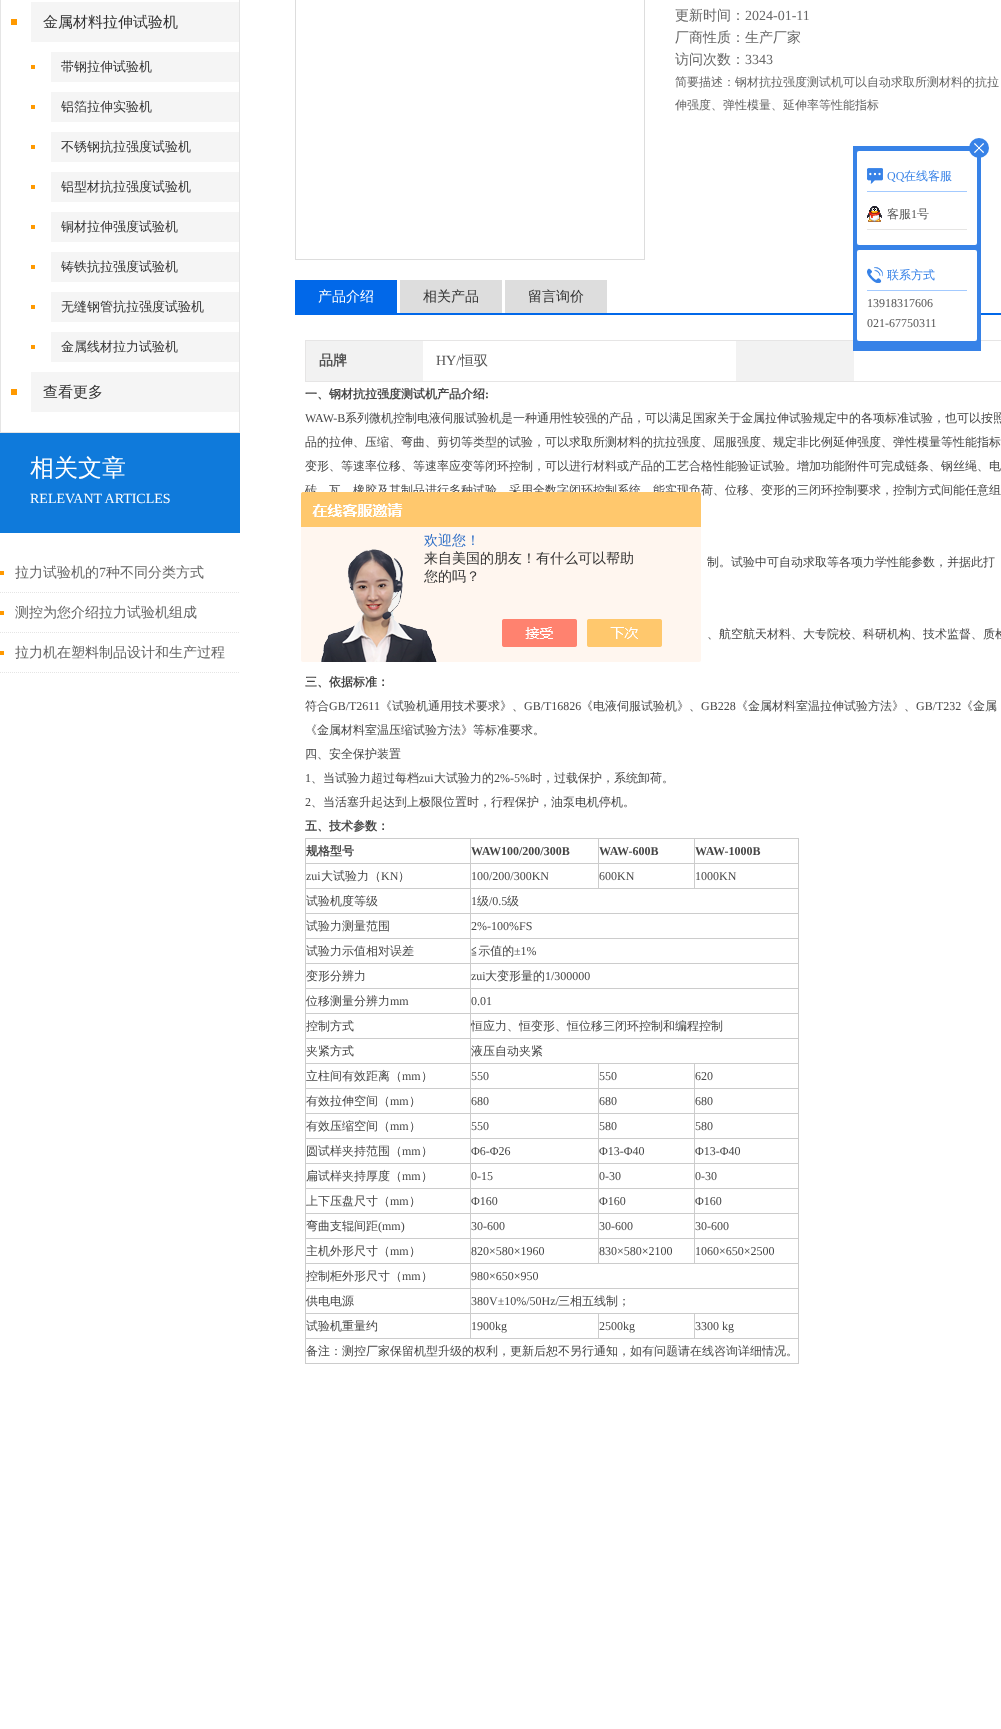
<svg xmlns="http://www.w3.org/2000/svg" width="1001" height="1729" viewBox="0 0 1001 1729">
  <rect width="100%" height="100%" fill="rgb(255,255,255)"/>
  <rect x="239" y="0" width="1" height="433" fill="rgb(229,229,229)"/>
  <rect x="0" y="432" width="240" height="1" fill="rgb(229,229,229)"/>
  <rect x="0" y="0" width="1" height="433" fill="rgb(229,229,229)"/>
  <rect x="11" y="19" width="6" height="6" fill="rgb(255,153,0)"/>
  <rect x="31" y="2" width="208" height="40" fill="rgb(245,245,245)"/>
  <text x="43" y="27" font-family="WenQuanYi Zen Hei" font-size="15" font-weight="500" fill="rgb(51,51,51)">金属材料拉伸试验机</text>
  <rect x="31" y="65" width="4" height="4" fill="rgb(255,153,0)"/>
  <rect x="51" y="52" width="188" height="30" fill="rgb(245,245,245)"/>
  <text x="61" y="71" font-family="WenQuanYi Zen Hei" font-size="13" font-weight="500" fill="rgb(51,51,51)">带钢拉伸试验机</text>
  <rect x="31" y="105" width="4" height="4" fill="rgb(255,153,0)"/>
  <rect x="51" y="92" width="188" height="30" fill="rgb(245,245,245)"/>
  <text x="61" y="111" font-family="WenQuanYi Zen Hei" font-size="13" font-weight="500" fill="rgb(51,51,51)">铝箔拉伸实验机</text>
  <rect x="31" y="145" width="4" height="4" fill="rgb(255,153,0)"/>
  <rect x="51" y="132" width="188" height="30" fill="rgb(245,245,245)"/>
  <text x="61" y="151" font-family="WenQuanYi Zen Hei" font-size="13" font-weight="500" fill="rgb(51,51,51)">不锈钢抗拉强度试验机</text>
  <rect x="31" y="185" width="4" height="4" fill="rgb(255,153,0)"/>
  <rect x="51" y="172" width="188" height="30" fill="rgb(245,245,245)"/>
  <text x="61" y="191" font-family="WenQuanYi Zen Hei" font-size="13" font-weight="500" fill="rgb(51,51,51)">铝型材抗拉强度试验机</text>
  <rect x="31" y="225" width="4" height="4" fill="rgb(255,153,0)"/>
  <rect x="51" y="212" width="188" height="30" fill="rgb(245,245,245)"/>
  <text x="61" y="231" font-family="WenQuanYi Zen Hei" font-size="13" font-weight="500" fill="rgb(51,51,51)">铜材拉伸强度试验机</text>
  <rect x="31" y="265" width="4" height="4" fill="rgb(255,153,0)"/>
  <rect x="51" y="252" width="188" height="30" fill="rgb(245,245,245)"/>
  <text x="61" y="271" font-family="WenQuanYi Zen Hei" font-size="13" font-weight="500" fill="rgb(51,51,51)">铸铁抗拉强度试验机</text>
  <rect x="31" y="305" width="4" height="4" fill="rgb(255,153,0)"/>
  <rect x="51" y="292" width="188" height="30" fill="rgb(245,245,245)"/>
  <text x="61" y="311" font-family="WenQuanYi Zen Hei" font-size="13" font-weight="500" fill="rgb(51,51,51)">无缝钢管抗拉强度试验机</text>
  <rect x="31" y="345" width="4" height="4" fill="rgb(255,153,0)"/>
  <rect x="51" y="332" width="188" height="30" fill="rgb(245,245,245)"/>
  <text x="61" y="351" font-family="WenQuanYi Zen Hei" font-size="13" font-weight="500" fill="rgb(51,51,51)">金属线材拉力试验机</text>
  <rect x="11" y="389" width="6" height="6" fill="rgb(255,153,0)"/>
  <rect x="31" y="372" width="208" height="40" fill="rgb(245,245,245)"/>
  <text x="43" y="397" font-family="WenQuanYi Zen Hei" font-size="15" font-weight="500" fill="rgb(51,51,51)">查看更多</text>
  <rect x="0" y="433" width="240" height="100" fill="rgb(15,122,219)"/>
  <text x="30" y="476" font-family="WenQuanYi Zen Hei" font-size="24" font-weight="500" fill="rgb(255,255,255)">相关文章</text>
  <text x="30" y="503" font-family="Liberation Serif" font-size="14" fill="rgb(255,255,255)">RELEVANT ARTICLES</text>
  <rect x="0" y="571" width="4" height="4" fill="rgb(255,153,0)"/>
  <path d="M0 592.5H240" fill="none" stroke="rgb(229,229,229)" stroke-dasharray="1 1"/>
  <text x="15" y="577" font-family="WenQuanYi Zen Hei" font-size="14" font-weight="500" fill="rgb(102,102,102)">拉力试验机的</text>
  <text x="99" y="577" font-family="Liberation Serif" font-size="14" fill="rgb(102,102,102)">7</text>
  <text x="106" y="577" font-family="WenQuanYi Zen Hei" font-size="14" font-weight="500" fill="rgb(102,102,102)">种不同分类方式</text>
  <rect x="0" y="611" width="4" height="4" fill="rgb(255,153,0)"/>
  <path d="M0 632.5H240" fill="none" stroke="rgb(229,229,229)" stroke-dasharray="1 1"/>
  <text x="15" y="617" font-family="WenQuanYi Zen Hei" font-size="14" font-weight="500" fill="rgb(102,102,102)">测控为您介绍拉力试验机组成</text>
  <rect x="0" y="651" width="4" height="4" fill="rgb(255,153,0)"/>
  <path d="M0 672.5H240" fill="none" stroke="rgb(229,229,229)" stroke-dasharray="1 1"/>
  <text x="15" y="657" font-family="WenQuanYi Zen Hei" font-size="14" font-weight="500" fill="rgb(102,102,102)">拉力机在塑料制品设计和生产过程</text>
  <rect x="295.5" y="-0.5" width="349" height="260" fill="none" stroke="rgb(221,221,221)"/>
  <text x="675" y="20" font-family="WenQuanYi Zen Hei" font-size="14" font-weight="500" fill="rgb(102,102,102)">更新时间：</text>
  <text x="745" y="20" font-family="Liberation Serif" font-size="14" fill="rgb(102,102,102)">2024-01-11</text>
  <g font-family="WenQuanYi Zen Hei" font-size="14" font-weight="500" fill="rgb(102,102,102)">
    <text>
      <tspan x="675" y="42">厂商性质：生产厂家</tspan>
      <tspan x="675" y="64">访问次数：</tspan>
    </text>
  </g>
  <text x="745" y="64" font-family="Liberation Serif" font-size="14" fill="rgb(102,102,102)">3343</text>
  <g font-family="WenQuanYi Zen Hei" font-size="12" font-weight="500" fill="rgb(102,102,102)">
    <text>
      <tspan x="675" y="86">简要描述：钢材抗拉强度测试机可以自动求取所测材料的抗拉</tspan>
      <tspan x="675" y="109">伸强度、弹性模量、延伸率等性能指标</tspan>
    </text>
  </g>
  <rect x="295" y="313" width="706" height="2" fill="rgb(1,104,233)"/>
  <rect x="295" y="280" width="102" height="33" fill="rgb(1,104,233)"/>
  <text x="318" y="301" font-family="WenQuanYi Zen Hei" font-size="14" font-weight="500" fill="rgb(255,255,255)">产品介绍</text>
  <rect x="400" y="280" width="102" height="33" fill="rgb(221,221,221)"/>
  <text x="423" y="301" font-family="WenQuanYi Zen Hei" font-size="14" font-weight="500" fill="rgb(51,51,51)">相关产品</text>
  <rect x="505" y="280" width="102" height="33" fill="rgb(221,221,221)"/>
  <text x="528" y="301" font-family="WenQuanYi Zen Hei" font-size="14" font-weight="500" fill="rgb(51,51,51)">留言询价</text>
  <rect x="305" y="340" width="696" height="1" fill="rgb(230,229,229)"/>
  <rect x="305" y="340" width="1" height="42" fill="rgb(230,229,229)"/>
  <rect x="306" y="341" width="117" height="40" fill="rgb(242,242,242)"/>
  <text x="319" y="365" font-family="WenQuanYi Zen Hei" font-size="14" font-weight="bold" fill="rgb(85,85,85)">品牌</text>
  <text x="436" y="365" font-family="Liberation Serif" font-size="14" fill="rgb(85,85,85)">HY/</text>
  <text x="460" y="365" font-family="WenQuanYi Zen Hei" font-size="14" font-weight="500" fill="rgb(85,85,85)">恒驭</text>
  <rect x="736" y="341" width="118" height="40" fill="rgb(242,242,242)"/>
  <rect x="305" y="381" width="696" height="1" fill="rgb(230,229,229)"/>
  <text x="305" y="398" font-family="WenQuanYi Zen Hei" font-size="12" font-weight="bold" fill="rgb(71,71,71)">一、钢材抗拉强度测试机产品介绍</text>
  <text x="485" y="398" font-family="Liberation Serif" font-size="12" font-weight="bold" fill="rgb(71,71,71)">:</text>
  <text x="305" y="422" font-family="Liberation Serif" font-size="12" fill="rgb(71,71,71)">WAW-B</text>
  <g font-family="WenQuanYi Zen Hei" font-size="12" font-weight="500" fill="rgb(71,71,71)">
    <text x="345" y="422">系列微机控制电液伺服试验机是一种通用性较强的产品，可以满足国家关于金属拉伸试验规定中的各项标准试验，也可以按照</text>
    <text x="305" y="446">品的拉伸、压缩、弯曲、剪切等类型的试验，可以求取所测材料的抗拉强度、屈服强度、规定非比例延伸强度、弹性模量等性能指标</text>
    <text x="305" y="470">变形、等速率位移、等速率应变等闭环控制，可以进行材料或产品的工艺合格性能验证试验。增加功能附件可完成链条、钢丝绳、电</text>
    <text x="305" y="494">砖、瓦、橡胶及其制品进行多种试验。采用全数字闭环控制系统，能实现负荷、位移、变形的三闭环控制要求，控制方式间能任意组</text>
    <text x="707" y="566">制。试验中可自动求取等各项力学性能参数，并据此打</text>
    <text x="707" y="638">、航空航天材料、大专院校、科研机构、技术监督、质检</text>
  </g>
  <text x="305" y="686" font-family="WenQuanYi Zen Hei" font-size="12" font-weight="bold" fill="rgb(71,71,71)">三、依据标准：</text>
  <text x="305" y="710" font-family="WenQuanYi Zen Hei" font-size="12" font-weight="500" fill="rgb(71,71,71)">符合</text>
  <text x="329" y="710" font-family="Liberation Serif" font-size="12" fill="rgb(71,71,71)">GB/T2611</text>
  <text x="380" y="710" font-family="WenQuanYi Zen Hei" font-size="12" font-weight="500" fill="rgb(71,71,71)">《试验机通用技术要求》、</text>
  <text x="524" y="710" font-family="Liberation Serif" font-size="12" fill="rgb(71,71,71)">GB/T16826</text>
  <text x="581" y="710" font-family="WenQuanYi Zen Hei" font-size="12" font-weight="500" fill="rgb(71,71,71)">《电液伺服试验机》、</text>
  <text x="701" y="710" font-family="Liberation Serif" font-size="12" fill="rgb(71,71,71)">GB228</text>
  <text x="736" y="710" font-family="WenQuanYi Zen Hei" font-size="12" font-weight="500" fill="rgb(71,71,71)">《金属材料室温拉伸试验方法》、</text>
  <text x="916" y="710" font-family="Liberation Serif" font-size="12" fill="rgb(71,71,71)">GB/T232</text>
  <g font-family="WenQuanYi Zen Hei" font-size="12" font-weight="500" fill="rgb(71,71,71)">
    <text x="961" y="710">《金属</text>
    <text x="305" y="734">《金属材料室温压缩试验方法》等标准要求。</text>
    <text x="305" y="758">四、安全保护装置</text>
  </g>
  <text x="305" y="782" font-family="Liberation Serif" font-size="12" fill="rgb(71,71,71)">1</text>
  <text x="311" y="782" font-family="WenQuanYi Zen Hei" font-size="12" font-weight="500" fill="rgb(71,71,71)">、当试验力超过每档</text>
  <text x="419" y="782" font-family="Liberation Serif" font-size="12" fill="rgb(71,71,71)">zui</text>
  <text x="434" y="782" font-family="WenQuanYi Zen Hei" font-size="12" font-weight="500" fill="rgb(71,71,71)">大试验力的</text>
  <text x="494" y="782" font-family="Liberation Serif" font-size="12" fill="rgb(71,71,71)">2%-5%</text>
  <text x="530" y="782" font-family="WenQuanYi Zen Hei" font-size="12" font-weight="500" fill="rgb(71,71,71)">时，过载保护，系统卸荷。</text>
  <text x="305" y="806" font-family="Liberation Serif" font-size="12" fill="rgb(71,71,71)">2</text>
  <text x="311" y="806" font-family="WenQuanYi Zen Hei" font-size="12" font-weight="500" fill="rgb(71,71,71)">、当活塞升起达到上极限位置时，行程保护，油泵电机停机。</text>
  <text x="305" y="830" font-family="WenQuanYi Zen Hei" font-size="12" font-weight="bold" fill="rgb(71,71,71)">五、技术参数：</text>
  <rect x="694" y="838" width="105" height="1" fill="rgb(204,204,204)"/>
  <rect x="694" y="863" width="105" height="1" fill="rgb(204,204,204)"/>
  <rect x="470" y="888" width="329" height="1" fill="rgb(204,204,204)"/>
  <rect x="694" y="863" width="1" height="26" fill="rgb(204,204,204)"/>
  <rect x="598" y="863" width="97" height="1" fill="rgb(204,204,204)"/>
  <rect x="694" y="838" width="1" height="26" fill="rgb(204,204,204)"/>
  <rect x="598" y="838" width="97" height="1" fill="rgb(204,204,204)"/>
  <rect x="598" y="863" width="1" height="26" fill="rgb(204,204,204)"/>
  <rect x="470" y="863" width="129" height="1" fill="rgb(204,204,204)"/>
  <rect x="598" y="838" width="1" height="26" fill="rgb(204,204,204)"/>
  <rect x="470" y="838" width="129" height="1" fill="rgb(204,204,204)"/>
  <rect x="470" y="913" width="329" height="1" fill="rgb(204,204,204)"/>
  <rect x="470" y="938" width="329" height="1" fill="rgb(204,204,204)"/>
  <rect x="470" y="963" width="329" height="1" fill="rgb(204,204,204)"/>
  <rect x="470" y="988" width="329" height="1" fill="rgb(204,204,204)"/>
  <rect x="470" y="1013" width="329" height="1" fill="rgb(204,204,204)"/>
  <rect x="470" y="1038" width="329" height="1" fill="rgb(204,204,204)"/>
  <rect x="694" y="1063" width="105" height="1" fill="rgb(204,204,204)"/>
  <rect x="694" y="1088" width="105" height="1" fill="rgb(204,204,204)"/>
  <rect x="694" y="1113" width="105" height="1" fill="rgb(204,204,204)"/>
  <rect x="694" y="1138" width="105" height="1" fill="rgb(204,204,204)"/>
  <rect x="694" y="1163" width="105" height="1" fill="rgb(204,204,204)"/>
  <rect x="694" y="1188" width="105" height="1" fill="rgb(204,204,204)"/>
  <rect x="694" y="1213" width="105" height="1" fill="rgb(204,204,204)"/>
  <rect x="694" y="1238" width="105" height="1" fill="rgb(204,204,204)"/>
  <rect x="470" y="1263" width="329" height="1" fill="rgb(204,204,204)"/>
  <rect x="694" y="1238" width="1" height="26" fill="rgb(204,204,204)"/>
  <rect x="598" y="1238" width="97" height="1" fill="rgb(204,204,204)"/>
  <rect x="694" y="1213" width="1" height="26" fill="rgb(204,204,204)"/>
  <rect x="598" y="1213" width="97" height="1" fill="rgb(204,204,204)"/>
  <rect x="694" y="1188" width="1" height="26" fill="rgb(204,204,204)"/>
  <rect x="598" y="1188" width="97" height="1" fill="rgb(204,204,204)"/>
  <rect x="694" y="1163" width="1" height="26" fill="rgb(204,204,204)"/>
  <rect x="598" y="1163" width="97" height="1" fill="rgb(204,204,204)"/>
  <rect x="694" y="1138" width="1" height="26" fill="rgb(204,204,204)"/>
  <rect x="598" y="1138" width="97" height="1" fill="rgb(204,204,204)"/>
  <rect x="694" y="1113" width="1" height="26" fill="rgb(204,204,204)"/>
  <rect x="598" y="1113" width="97" height="1" fill="rgb(204,204,204)"/>
  <rect x="694" y="1088" width="1" height="26" fill="rgb(204,204,204)"/>
  <rect x="598" y="1088" width="97" height="1" fill="rgb(204,204,204)"/>
  <rect x="694" y="1063" width="1" height="26" fill="rgb(204,204,204)"/>
  <rect x="598" y="1063" width="97" height="1" fill="rgb(204,204,204)"/>
  <rect x="598" y="1238" width="1" height="26" fill="rgb(204,204,204)"/>
  <rect x="470" y="1238" width="129" height="1" fill="rgb(204,204,204)"/>
  <rect x="598" y="1213" width="1" height="26" fill="rgb(204,204,204)"/>
  <rect x="470" y="1213" width="129" height="1" fill="rgb(204,204,204)"/>
  <rect x="598" y="1188" width="1" height="26" fill="rgb(204,204,204)"/>
  <rect x="470" y="1188" width="129" height="1" fill="rgb(204,204,204)"/>
  <rect x="598" y="1163" width="1" height="26" fill="rgb(204,204,204)"/>
  <rect x="470" y="1163" width="129" height="1" fill="rgb(204,204,204)"/>
  <rect x="598" y="1138" width="1" height="26" fill="rgb(204,204,204)"/>
  <rect x="470" y="1138" width="129" height="1" fill="rgb(204,204,204)"/>
  <rect x="598" y="1113" width="1" height="26" fill="rgb(204,204,204)"/>
  <rect x="470" y="1113" width="129" height="1" fill="rgb(204,204,204)"/>
  <rect x="598" y="1088" width="1" height="26" fill="rgb(204,204,204)"/>
  <rect x="470" y="1088" width="129" height="1" fill="rgb(204,204,204)"/>
  <rect x="598" y="1063" width="1" height="26" fill="rgb(204,204,204)"/>
  <rect x="470" y="1063" width="129" height="1" fill="rgb(204,204,204)"/>
  <rect x="470" y="1288" width="329" height="1" fill="rgb(204,204,204)"/>
  <rect x="694" y="1313" width="105" height="1" fill="rgb(204,204,204)"/>
  <rect x="305" y="1338" width="494" height="1" fill="rgb(204,204,204)"/>
  <rect x="694" y="1313" width="1" height="26" fill="rgb(204,204,204)"/>
  <rect x="598" y="1313" width="97" height="1" fill="rgb(204,204,204)"/>
  <rect x="598" y="1313" width="1" height="26" fill="rgb(204,204,204)"/>
  <rect x="470" y="1313" width="129" height="1" fill="rgb(204,204,204)"/>
  <rect x="470" y="1313" width="1" height="26" fill="rgb(204,204,204)"/>
  <rect x="305" y="1313" width="166" height="1" fill="rgb(204,204,204)"/>
  <rect x="470" y="1288" width="1" height="26" fill="rgb(204,204,204)"/>
  <rect x="305" y="1288" width="166" height="1" fill="rgb(204,204,204)"/>
  <rect x="470" y="1263" width="1" height="26" fill="rgb(204,204,204)"/>
  <rect x="305" y="1263" width="166" height="1" fill="rgb(204,204,204)"/>
  <rect x="470" y="1238" width="1" height="26" fill="rgb(204,204,204)"/>
  <rect x="305" y="1238" width="166" height="1" fill="rgb(204,204,204)"/>
  <rect x="470" y="1213" width="1" height="26" fill="rgb(204,204,204)"/>
  <rect x="305" y="1213" width="166" height="1" fill="rgb(204,204,204)"/>
  <rect x="470" y="1188" width="1" height="26" fill="rgb(204,204,204)"/>
  <rect x="305" y="1188" width="166" height="1" fill="rgb(204,204,204)"/>
  <rect x="470" y="1163" width="1" height="26" fill="rgb(204,204,204)"/>
  <rect x="305" y="1163" width="166" height="1" fill="rgb(204,204,204)"/>
  <rect x="470" y="1138" width="1" height="26" fill="rgb(204,204,204)"/>
  <rect x="305" y="1138" width="166" height="1" fill="rgb(204,204,204)"/>
  <rect x="470" y="1113" width="1" height="26" fill="rgb(204,204,204)"/>
  <rect x="305" y="1113" width="166" height="1" fill="rgb(204,204,204)"/>
  <rect x="470" y="1088" width="1" height="26" fill="rgb(204,204,204)"/>
  <rect x="305" y="1088" width="166" height="1" fill="rgb(204,204,204)"/>
  <rect x="470" y="1063" width="1" height="26" fill="rgb(204,204,204)"/>
  <rect x="305" y="1063" width="166" height="1" fill="rgb(204,204,204)"/>
  <rect x="470" y="1038" width="1" height="26" fill="rgb(204,204,204)"/>
  <rect x="305" y="1038" width="166" height="1" fill="rgb(204,204,204)"/>
  <rect x="470" y="1013" width="1" height="26" fill="rgb(204,204,204)"/>
  <rect x="305" y="1013" width="166" height="1" fill="rgb(204,204,204)"/>
  <rect x="470" y="988" width="1" height="26" fill="rgb(204,204,204)"/>
  <rect x="305" y="988" width="166" height="1" fill="rgb(204,204,204)"/>
  <rect x="470" y="963" width="1" height="26" fill="rgb(204,204,204)"/>
  <rect x="305" y="963" width="166" height="1" fill="rgb(204,204,204)"/>
  <rect x="470" y="938" width="1" height="26" fill="rgb(204,204,204)"/>
  <rect x="305" y="938" width="166" height="1" fill="rgb(204,204,204)"/>
  <rect x="470" y="913" width="1" height="26" fill="rgb(204,204,204)"/>
  <rect x="305" y="913" width="166" height="1" fill="rgb(204,204,204)"/>
  <rect x="470" y="888" width="1" height="26" fill="rgb(204,204,204)"/>
  <rect x="305" y="888" width="166" height="1" fill="rgb(204,204,204)"/>
  <rect x="470" y="863" width="1" height="26" fill="rgb(204,204,204)"/>
  <rect x="305" y="863" width="166" height="1" fill="rgb(204,204,204)"/>
  <rect x="470" y="838" width="1" height="26" fill="rgb(204,204,204)"/>
  <rect x="305" y="838" width="166" height="1" fill="rgb(204,204,204)"/>
  <rect x="798" y="1338" width="1" height="26" fill="rgb(204,204,204)"/>
  <rect x="305" y="1363" width="494" height="1" fill="rgb(204,204,204)"/>
  <rect x="305" y="1338" width="1" height="26" fill="rgb(204,204,204)"/>
  <rect x="305" y="1313" width="1" height="26" fill="rgb(204,204,204)"/>
  <rect x="305" y="1288" width="1" height="26" fill="rgb(204,204,204)"/>
  <rect x="305" y="1263" width="1" height="26" fill="rgb(204,204,204)"/>
  <rect x="305" y="1238" width="1" height="26" fill="rgb(204,204,204)"/>
  <rect x="305" y="1213" width="1" height="26" fill="rgb(204,204,204)"/>
  <rect x="305" y="1188" width="1" height="26" fill="rgb(204,204,204)"/>
  <rect x="305" y="1163" width="1" height="26" fill="rgb(204,204,204)"/>
  <rect x="305" y="1138" width="1" height="26" fill="rgb(204,204,204)"/>
  <rect x="305" y="1113" width="1" height="26" fill="rgb(204,204,204)"/>
  <rect x="305" y="1088" width="1" height="26" fill="rgb(204,204,204)"/>
  <rect x="305" y="1063" width="1" height="26" fill="rgb(204,204,204)"/>
  <rect x="305" y="1038" width="1" height="26" fill="rgb(204,204,204)"/>
  <rect x="305" y="1013" width="1" height="26" fill="rgb(204,204,204)"/>
  <rect x="305" y="988" width="1" height="26" fill="rgb(204,204,204)"/>
  <rect x="305" y="963" width="1" height="26" fill="rgb(204,204,204)"/>
  <rect x="305" y="938" width="1" height="26" fill="rgb(204,204,204)"/>
  <rect x="305" y="913" width="1" height="26" fill="rgb(204,204,204)"/>
  <rect x="305" y="888" width="1" height="26" fill="rgb(204,204,204)"/>
  <rect x="305" y="863" width="1" height="26" fill="rgb(204,204,204)"/>
  <rect x="305" y="838" width="1" height="26" fill="rgb(204,204,204)"/>
  <text x="306" y="855" font-family="WenQuanYi Zen Hei" font-size="12" font-weight="bold" fill="rgb(71,71,71)">规格型号</text>
  <g font-family="Liberation Serif" font-size="12" font-weight="bold" fill="rgb(71,71,71)">
    <text x="471" y="855">WAW100/200/300B</text>
    <text x="599" y="855">WAW-600B</text>
  </g>
  <rect x="798" y="1313" width="1" height="26" fill="rgb(204,204,204)"/>
  <rect x="798" y="1288" width="1" height="26" fill="rgb(204,204,204)"/>
  <rect x="798" y="1263" width="1" height="26" fill="rgb(204,204,204)"/>
  <rect x="798" y="1238" width="1" height="26" fill="rgb(204,204,204)"/>
  <rect x="798" y="1213" width="1" height="26" fill="rgb(204,204,204)"/>
  <rect x="798" y="1188" width="1" height="26" fill="rgb(204,204,204)"/>
  <rect x="798" y="1163" width="1" height="26" fill="rgb(204,204,204)"/>
  <rect x="798" y="1138" width="1" height="26" fill="rgb(204,204,204)"/>
  <rect x="798" y="1113" width="1" height="26" fill="rgb(204,204,204)"/>
  <rect x="798" y="1088" width="1" height="26" fill="rgb(204,204,204)"/>
  <rect x="798" y="1063" width="1" height="26" fill="rgb(204,204,204)"/>
  <rect x="798" y="1038" width="1" height="26" fill="rgb(204,204,204)"/>
  <rect x="798" y="1013" width="1" height="26" fill="rgb(204,204,204)"/>
  <rect x="798" y="988" width="1" height="26" fill="rgb(204,204,204)"/>
  <rect x="798" y="963" width="1" height="26" fill="rgb(204,204,204)"/>
  <rect x="798" y="938" width="1" height="26" fill="rgb(204,204,204)"/>
  <rect x="798" y="913" width="1" height="26" fill="rgb(204,204,204)"/>
  <rect x="798" y="888" width="1" height="26" fill="rgb(204,204,204)"/>
  <rect x="798" y="863" width="1" height="26" fill="rgb(204,204,204)"/>
  <rect x="798" y="838" width="1" height="26" fill="rgb(204,204,204)"/>
  <text x="695" y="855" font-family="Liberation Serif" font-size="12" font-weight="bold" fill="rgb(71,71,71)">WAW-1000B</text>
  <text x="306" y="880" font-family="Liberation Serif" font-size="12" fill="rgb(71,71,71)">zui</text>
  <text x="321" y="880" font-family="WenQuanYi Zen Hei" font-size="12" font-weight="500" fill="rgb(71,71,71)">大试验力（</text>
  <text x="381" y="880" font-family="Liberation Serif" font-size="12" fill="rgb(71,71,71)">KN</text>
  <text x="398" y="880" font-family="WenQuanYi Zen Hei" font-size="12" font-weight="500" fill="rgb(71,71,71)">）</text>
  <g font-family="Liberation Serif" font-size="12" fill="rgb(71,71,71)">
    <text x="471" y="880">100/200/300KN</text>
    <text x="599" y="880">600KN</text>
    <text x="695" y="880">1000KN</text>
  </g>
  <text x="306" y="905" font-family="WenQuanYi Zen Hei" font-size="12" font-weight="500" fill="rgb(71,71,71)">试验机度等级</text>
  <text x="471" y="905" font-family="Liberation Serif" font-size="12" fill="rgb(71,71,71)">1</text>
  <text x="477" y="905" font-family="WenQuanYi Zen Hei" font-size="12" font-weight="500" fill="rgb(71,71,71)">级</text>
  <text x="489" y="905" font-family="Liberation Serif" font-size="12" fill="rgb(71,71,71)">/0.5</text>
  <g font-family="WenQuanYi Zen Hei" font-size="12" font-weight="500" fill="rgb(71,71,71)">
    <text x="507" y="905">级</text>
    <text x="306" y="930">试验力测量范围</text>
  </g>
  <text x="471" y="930" font-family="Liberation Serif" font-size="12" fill="rgb(71,71,71)">2%-100%FS</text>
  <g font-family="WenQuanYi Zen Hei" font-size="12" font-weight="500" fill="rgb(71,71,71)">
    <text x="306" y="955">试验力示值相对误差</text>
    <text x="471" y="955">≦示值的</text>
  </g>
  <text x="514" y="955" font-family="Liberation Serif" font-size="12" fill="rgb(71,71,71)">±1%</text>
  <text x="306" y="980" font-family="WenQuanYi Zen Hei" font-size="12" font-weight="500" fill="rgb(71,71,71)">变形分辨力</text>
  <text x="471" y="980" font-family="Liberation Serif" font-size="12" fill="rgb(71,71,71)">zui</text>
  <text x="485" y="980" font-family="WenQuanYi Zen Hei" font-size="12" font-weight="500" fill="rgb(71,71,71)">大变形量的</text>
  <text x="545" y="980" font-family="Liberation Serif" font-size="12" fill="rgb(71,71,71)">1/300000</text>
  <text x="306" y="1005" font-family="WenQuanYi Zen Hei" font-size="12" font-weight="500" fill="rgb(71,71,71)">位移测量分辨力</text>
  <g font-family="Liberation Serif" font-size="12" fill="rgb(71,71,71)">
    <text x="390" y="1005">mm</text>
    <text x="471" y="1005">0.01</text>
  </g>
  <g font-family="WenQuanYi Zen Hei" font-size="12" font-weight="500" fill="rgb(71,71,71)">
    <text x="306" y="1030">控制方式</text>
    <text x="471" y="1030">恒应力、恒变形、恒位移三闭环控制和编程控制</text>
    <text x="306" y="1055">夹紧方式</text>
    <text x="471" y="1055">液压自动夹紧</text>
    <text x="306" y="1080">立柱间有效距离（</text>
  </g>
  <text x="402" y="1080" font-family="Liberation Serif" font-size="12" fill="rgb(71,71,71)">mm</text>
  <text x="421" y="1080" font-family="WenQuanYi Zen Hei" font-size="12" font-weight="500" fill="rgb(71,71,71)">）</text>
  <g font-family="Liberation Serif" font-size="12" fill="rgb(71,71,71)">
    <text x="471" y="1080">550</text>
    <text x="599" y="1080">550</text>
    <text x="695" y="1080">620</text>
  </g>
  <text x="306" y="1105" font-family="WenQuanYi Zen Hei" font-size="12" font-weight="500" fill="rgb(71,71,71)">有效拉伸空间（</text>
  <text x="390" y="1105" font-family="Liberation Serif" font-size="12" fill="rgb(71,71,71)">mm</text>
  <text x="409" y="1105" font-family="WenQuanYi Zen Hei" font-size="12" font-weight="500" fill="rgb(71,71,71)">）</text>
  <g font-family="Liberation Serif" font-size="12" fill="rgb(71,71,71)">
    <text x="471" y="1105">680</text>
    <text x="599" y="1105">680</text>
    <text x="695" y="1105">680</text>
  </g>
  <text x="306" y="1130" font-family="WenQuanYi Zen Hei" font-size="12" font-weight="500" fill="rgb(71,71,71)">有效压缩空间（</text>
  <text x="390" y="1130" font-family="Liberation Serif" font-size="12" fill="rgb(71,71,71)">mm</text>
  <text x="409" y="1130" font-family="WenQuanYi Zen Hei" font-size="12" font-weight="500" fill="rgb(71,71,71)">）</text>
  <g font-family="Liberation Serif" font-size="12" fill="rgb(71,71,71)">
    <text x="471" y="1130">550</text>
    <text x="599" y="1130">580</text>
    <text x="695" y="1130">580</text>
  </g>
  <text x="306" y="1155" font-family="WenQuanYi Zen Hei" font-size="12" font-weight="500" fill="rgb(71,71,71)">圆试样夹持范围（</text>
  <text x="402" y="1155" font-family="Liberation Serif" font-size="12" fill="rgb(71,71,71)">mm</text>
  <text x="421" y="1155" font-family="WenQuanYi Zen Hei" font-size="12" font-weight="500" fill="rgb(71,71,71)">）</text>
  <g font-family="Liberation Serif" font-size="12" fill="rgb(71,71,71)">
    <text x="471" y="1155">Φ6-Φ26</text>
    <text x="599" y="1155">Φ13-Φ40</text>
    <text x="695" y="1155">Φ13-Φ40</text>
  </g>
  <text x="306" y="1180" font-family="WenQuanYi Zen Hei" font-size="12" font-weight="500" fill="rgb(71,71,71)">扁试样夹持厚度（</text>
  <text x="402" y="1180" font-family="Liberation Serif" font-size="12" fill="rgb(71,71,71)">mm</text>
  <text x="421" y="1180" font-family="WenQuanYi Zen Hei" font-size="12" font-weight="500" fill="rgb(71,71,71)">）</text>
  <g font-family="Liberation Serif" font-size="12" fill="rgb(71,71,71)">
    <text x="471" y="1180">0-15</text>
    <text x="599" y="1180">0-30</text>
    <text x="695" y="1180">0-30</text>
  </g>
  <text x="306" y="1205" font-family="WenQuanYi Zen Hei" font-size="12" font-weight="500" fill="rgb(71,71,71)">上下压盘尺寸（</text>
  <text x="390" y="1205" font-family="Liberation Serif" font-size="12" fill="rgb(71,71,71)">mm</text>
  <text x="409" y="1205" font-family="WenQuanYi Zen Hei" font-size="12" font-weight="500" fill="rgb(71,71,71)">）</text>
  <g font-family="Liberation Serif" font-size="12" fill="rgb(71,71,71)">
    <text x="471" y="1205">Φ160</text>
    <text x="599" y="1205">Φ160</text>
    <text x="695" y="1205">Φ160</text>
  </g>
  <text x="306" y="1230" font-family="WenQuanYi Zen Hei" font-size="12" font-weight="500" fill="rgb(71,71,71)">弯曲支辊间距</text>
  <g font-family="Liberation Serif" font-size="12" fill="rgb(71,71,71)">
    <text x="378" y="1230">(mm)</text>
    <text x="471" y="1230">30-600</text>
    <text x="599" y="1230">30-600</text>
    <text x="695" y="1230">30-600</text>
  </g>
  <text x="306" y="1255" font-family="WenQuanYi Zen Hei" font-size="12" font-weight="500" fill="rgb(71,71,71)">主机外形尺寸（</text>
  <text x="390" y="1255" font-family="Liberation Serif" font-size="12" fill="rgb(71,71,71)">mm</text>
  <text x="409" y="1255" font-family="WenQuanYi Zen Hei" font-size="12" font-weight="500" fill="rgb(71,71,71)">）</text>
  <g font-family="Liberation Serif" font-size="12" fill="rgb(71,71,71)">
    <text x="471" y="1255">820×580×1960</text>
    <text x="599" y="1255">830×580×2100</text>
    <text x="695" y="1255">1060×650×2500</text>
  </g>
  <text x="306" y="1280" font-family="WenQuanYi Zen Hei" font-size="12" font-weight="500" fill="rgb(71,71,71)">控制柜外形尺寸（</text>
  <text x="402" y="1280" font-family="Liberation Serif" font-size="12" fill="rgb(71,71,71)">mm</text>
  <text x="421" y="1280" font-family="WenQuanYi Zen Hei" font-size="12" font-weight="500" fill="rgb(71,71,71)">）</text>
  <text x="471" y="1280" font-family="Liberation Serif" font-size="12" fill="rgb(71,71,71)">980×650×950</text>
  <text x="306" y="1305" font-family="WenQuanYi Zen Hei" font-size="12" font-weight="500" fill="rgb(71,71,71)">供电电源</text>
  <text x="471" y="1305" font-family="Liberation Serif" font-size="12" fill="rgb(71,71,71)">380V±10%/50Hz/</text>
  <g font-family="WenQuanYi Zen Hei" font-size="12" font-weight="500" fill="rgb(71,71,71)">
    <text x="558" y="1305">三相五线制；</text>
    <text x="306" y="1330">试验机重量约</text>
  </g>
  <g font-family="Liberation Serif" font-size="12" fill="rgb(71,71,71)">
    <text x="471" y="1330">1900kg</text>
    <text x="599" y="1330">2500kg</text>
    <text x="695" y="1330">3300 kg</text>
  </g>
  <text x="306" y="1355" font-family="WenQuanYi Zen Hei" font-size="12" font-weight="500" fill="rgb(71,71,71)">备注：测控厂家保留机型升级的权利，更新后恕不另行通知，如有问题请在线咨询详细情况。</text>
  <rect x="853" y="146" width="128" height="205" fill="rgb(55,130,231)"/>
  <rect x="857" y="151" width="120" height="94" rx="2" fill="rgb(255,255,255)"/>
  <circle cx="979" cy="148" r="10" fill="rgb(55,130,231)"/>
  <image x="974" y="143" width="10" height="10" href="pic1.png"/>
  <image x="867" y="168" width="16" height="16" href="pic2.png"/>
  <rect x="867" y="191" width="100" height="1" fill="rgb(163,202,255)"/>
  <text x="887" y="180" font-family="Liberation Serif" font-size="12" fill="rgb(55,130,231)">QQ</text>
  <text x="904" y="180" font-family="WenQuanYi Zen Hei" font-size="12" font-weight="500" fill="rgb(55,130,231)">在线客服</text>
  <image x="867" y="206" width="15" height="16" href="pic3.png"/>
  <rect x="867" y="229" width="100" height="1" fill="rgb(230,229,228)"/>
  <text x="887" y="218" font-family="WenQuanYi Zen Hei" font-size="12" font-weight="500" fill="rgb(85,85,85)">客服</text>
  <text x="911" y="218" font-family="Liberation Serif" font-size="12" fill="rgb(85,85,85)">1</text>
  <text x="917" y="218" font-family="WenQuanYi Zen Hei" font-size="12" font-weight="500" fill="rgb(85,85,85)">号</text>
  <rect x="857" y="250" width="120" height="91" rx="2" fill="rgb(255,255,255)"/>
  <image x="867" y="267" width="16" height="16" href="pic4.png"/>
  <rect x="867" y="290" width="100" height="1" fill="rgb(163,202,255)"/>
  <text x="887" y="279" font-family="WenQuanYi Zen Hei" font-size="12" font-weight="500" fill="rgb(55,130,231)">联系方式</text>
  <g font-family="Liberation Serif" font-size="12" fill="rgb(85,85,85)">
    <text>
      <tspan x="867" y="307">13918317606</tspan>
      <tspan x="867" y="327">021-67750311</tspan>
    </text>
  </g>
  <image x="301" y="492" width="400" height="170" href="pic5.png"/>
  <text x="424" y="545" font-family="WenQuanYi Zen Hei" font-size="14" font-weight="500" fill="rgb(46,110,198)">欢迎您！</text>
  <g font-family="WenQuanYi Zen Hei" font-size="14" font-weight="500" fill="rgb(51,51,51)">
    <text>
      <tspan x="424" y="563">来自美国的朋友！有什么可以帮助</tspan>
      <tspan x="424" y="581">您的吗？</tspan>
    </text>
  </g>
</svg>
